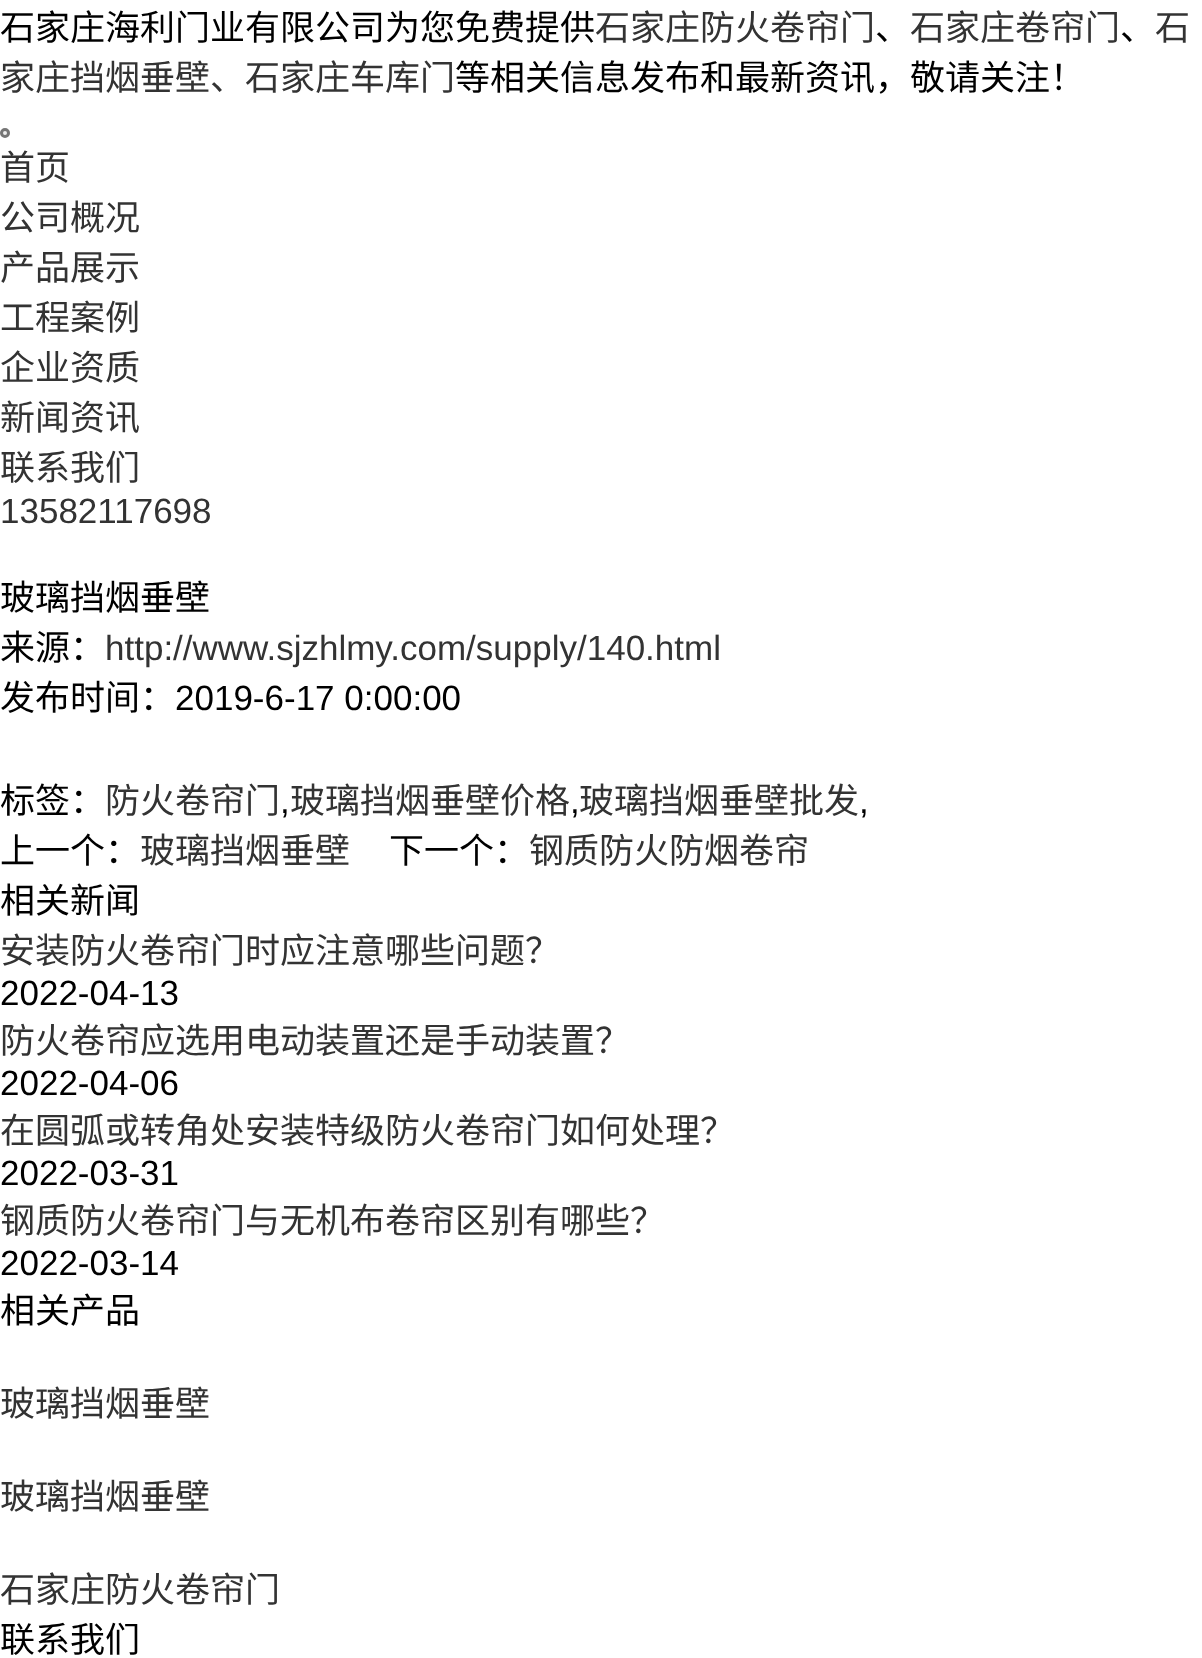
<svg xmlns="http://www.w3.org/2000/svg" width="1202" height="1658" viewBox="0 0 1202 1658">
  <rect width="100%" height="100%" fill="rgb(255,255,255)"/>
  <text x="0" y="40" font-family="Noto Sans CJK SC" font-size="35" fill="rgb(0,0,0)">石家庄海利门业有限公司为您免费提供</text>
  <text x="595" y="40" font-family="Noto Sans CJK SC" font-size="35" fill="rgb(51,51,51)">石家庄防火卷帘门</text>
  <text x="875" y="40" font-family="Noto Sans CJK SC" font-size="35" fill="rgb(0,0,0)">、</text>
  <text x="910" y="40" font-family="Noto Sans CJK SC" font-size="35" fill="rgb(51,51,51)">石家庄卷帘门</text>
  <text x="1120" y="40" font-family="Noto Sans CJK SC" font-size="35" fill="rgb(0,0,0)">、</text>
  <g font-family="Noto Sans CJK SC" font-size="35" fill="rgb(51,51,51)">
    <text x="1155" y="40">石</text>
    <text x="0" y="90">家庄挡烟垂壁、石家庄车库门</text>
  </g>
  <text x="455" y="90" font-family="Noto Sans CJK SC" font-size="35" fill="rgb(0,0,0)">等相关信息发布和最新资讯，敬请关注！</text>
  <circle cx="5" cy="133" r="3.5" fill="rgb(239,239,239)" stroke="rgb(118,118,118)" stroke-width="3"/>
  <g font-family="Noto Sans CJK SC" font-size="35" fill="rgb(51,51,51)">
    <text>
      <tspan x="0" y="180">首页</tspan>
      <tspan x="0" y="230">公司概况</tspan>
      <tspan x="0" y="280">产品展示</tspan>
      <tspan x="0" y="330">工程案例</tspan>
      <tspan x="0" y="380">企业资质</tspan>
      <tspan x="0" y="430">新闻资讯</tspan>
      <tspan x="0" y="480">联系我们</tspan>
    </text>
  </g>
  <text x="0" y="523" font-family="Liberation Sans" font-size="35" fill="rgb(51,51,51)">13582117698</text>
  <g font-family="Noto Sans CJK SC" font-size="35" fill="rgb(0,0,0)">
    <text>
      <tspan x="0" y="610">玻璃挡烟垂壁</tspan>
      <tspan x="0" y="660">来源：</tspan>
    </text>
  </g>
  <text x="105" y="660" font-family="Liberation Sans" font-size="35" fill="rgb(51,51,51)">http://www.sjzhlmy.com/supply/140.html</text>
  <text x="0" y="710" font-family="Noto Sans CJK SC" font-size="35" fill="rgb(0,0,0)">发布时间：</text>
  <text x="175" y="710" font-family="Liberation Sans" font-size="35" fill="rgb(0,0,0)">2019-6-17 0:00:00</text>
  <text x="0" y="813" font-family="Noto Sans CJK SC" font-size="35" fill="rgb(0,0,0)">标签：</text>
  <text x="105" y="813" font-family="Noto Sans CJK SC" font-size="35" fill="rgb(51,51,51)">防火卷帘门</text>
  <text x="280" y="813" font-family="Liberation Sans" font-size="35" fill="rgb(0,0,0)">,</text>
  <text x="290" y="813" font-family="Noto Sans CJK SC" font-size="35" fill="rgb(51,51,51)">玻璃挡烟垂壁价格</text>
  <text x="570" y="813" font-family="Liberation Sans" font-size="35" fill="rgb(0,0,0)">,</text>
  <text x="579" y="813" font-family="Noto Sans CJK SC" font-size="35" fill="rgb(51,51,51)">玻璃挡烟垂壁批发</text>
  <text x="859" y="813" font-family="Liberation Sans" font-size="35" fill="rgb(0,0,0)">,</text>
  <text x="0" y="863" font-family="Noto Sans CJK SC" font-size="35" fill="rgb(0,0,0)">上一个：</text>
  <text x="140" y="863" font-family="Noto Sans CJK SC" font-size="35" fill="rgb(51,51,51)">玻璃挡烟垂壁</text>
  <text x="389" y="863" font-family="Noto Sans CJK SC" font-size="35" fill="rgb(0,0,0)">下一个：</text>
  <text x="529" y="863" font-family="Noto Sans CJK SC" font-size="35" fill="rgb(51,51,51)">钢质防火防烟卷帘</text>
  <text x="0" y="913" font-family="Noto Sans CJK SC" font-size="35" fill="rgb(0,0,0)">相关新闻</text>
  <text x="0" y="963" font-family="Noto Sans CJK SC" font-size="35" fill="rgb(51,51,51)">安装防火卷帘门时应注意哪些问题？</text>
  <text x="0" y="1005" font-family="Liberation Sans" font-size="35" fill="rgb(0,0,0)">2022-04-13</text>
  <text x="0" y="1053" font-family="Noto Sans CJK SC" font-size="35" fill="rgb(51,51,51)">防火卷帘应选用电动装置还是手动装置？</text>
  <text x="0" y="1095" font-family="Liberation Sans" font-size="35" fill="rgb(0,0,0)">2022-04-06</text>
  <text x="0" y="1143" font-family="Noto Sans CJK SC" font-size="35" fill="rgb(51,51,51)">在圆弧或转角处安装特级防火卷帘门如何处理？</text>
  <text x="0" y="1185" font-family="Liberation Sans" font-size="35" fill="rgb(0,0,0)">2022-03-31</text>
  <text x="0" y="1233" font-family="Noto Sans CJK SC" font-size="35" fill="rgb(51,51,51)">钢质防火卷帘门与无机布卷帘区别有哪些？</text>
  <text x="0" y="1275" font-family="Liberation Sans" font-size="35" fill="rgb(0,0,0)">2022-03-14</text>
  <text x="0" y="1323" font-family="Noto Sans CJK SC" font-size="35" fill="rgb(0,0,0)">相关产品</text>
  <g font-family="Noto Sans CJK SC" font-size="35" fill="rgb(51,51,51)">
    <text x="0" y="1416">玻璃挡烟垂壁</text>
    <text x="0" y="1509">玻璃挡烟垂壁</text>
    <text x="0" y="1602">石家庄防火卷帘门</text>
  </g>
  <text x="0" y="1652" font-family="Noto Sans CJK SC" font-size="35" fill="rgb(0,0,0)">联系我们</text>
</svg>
